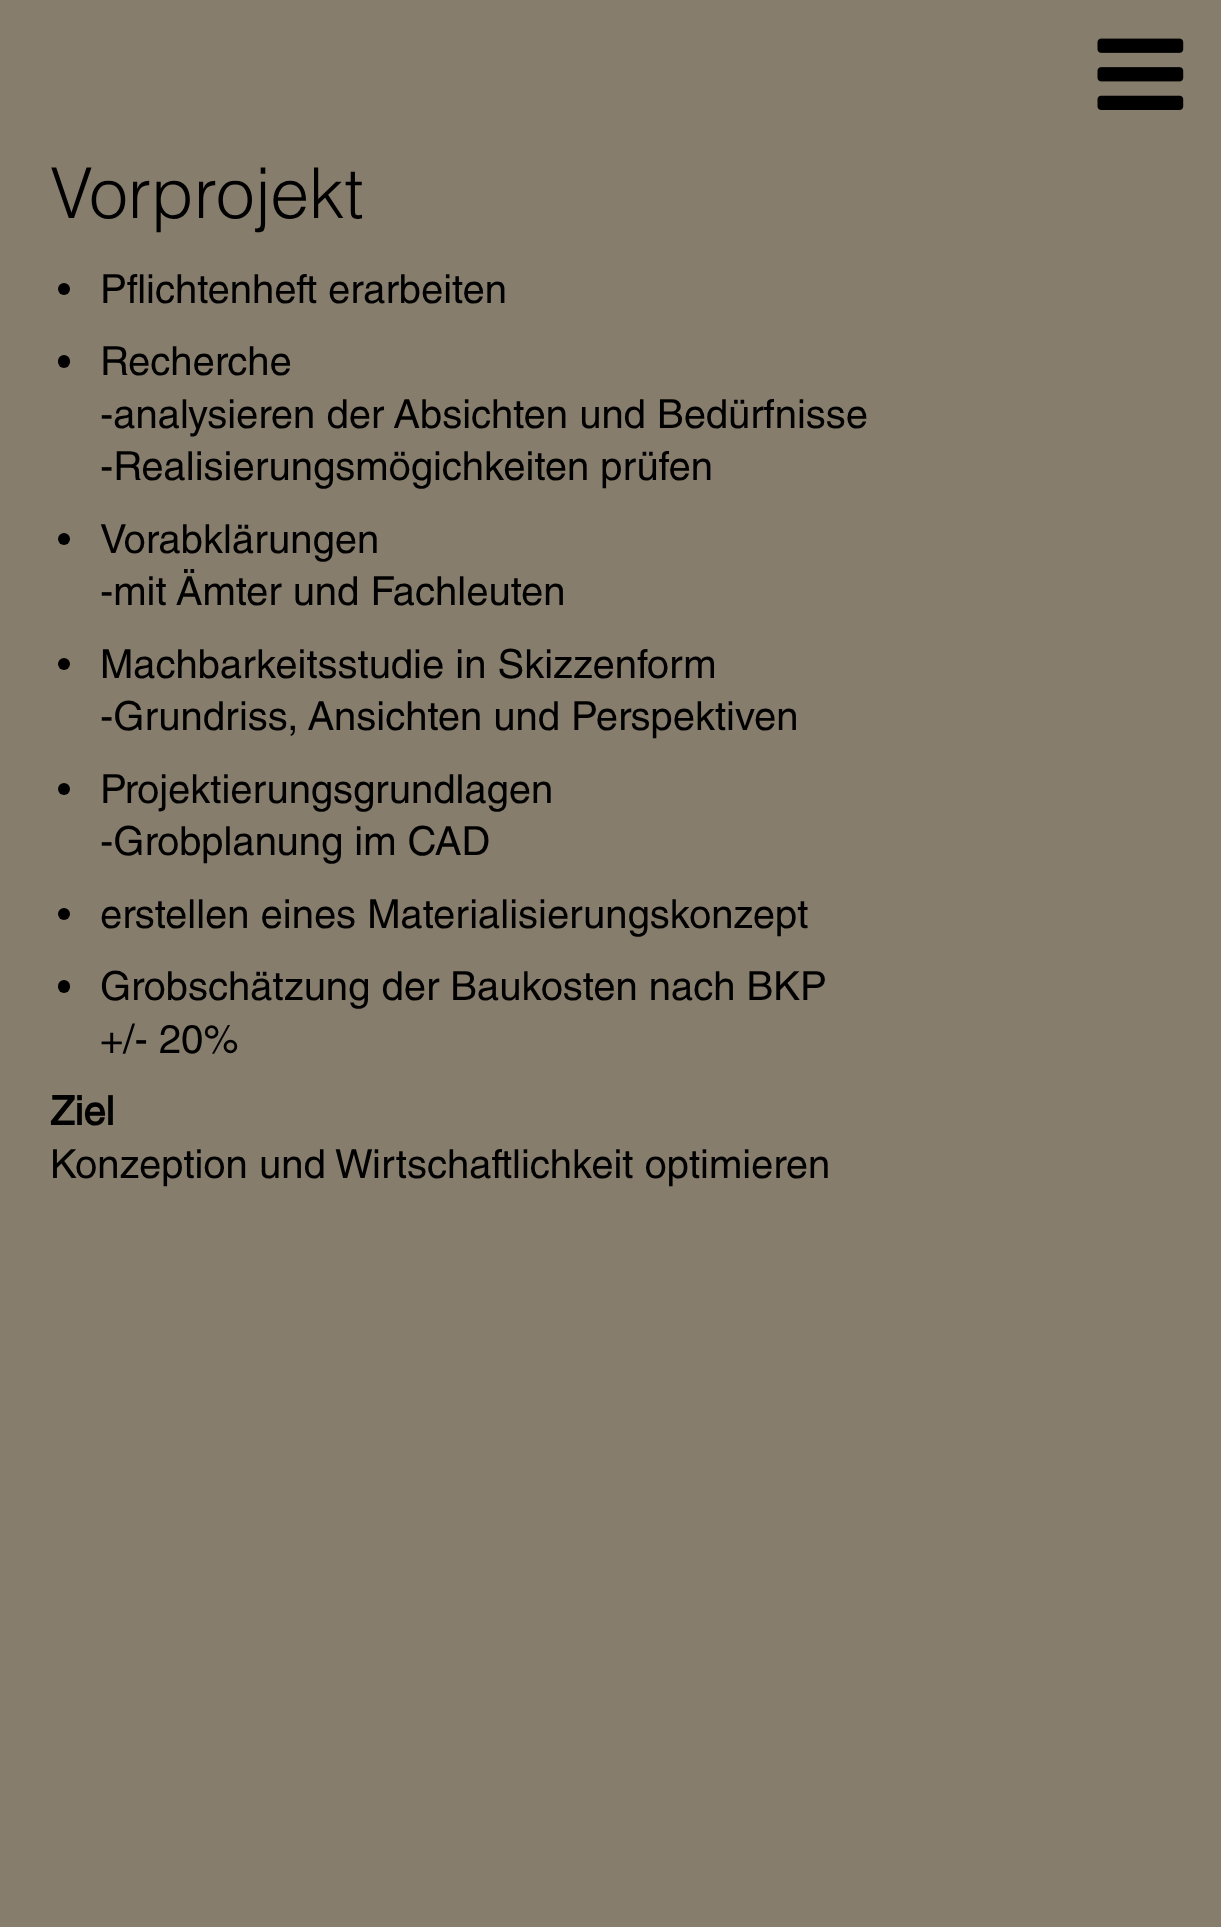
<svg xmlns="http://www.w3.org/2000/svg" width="1221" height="1927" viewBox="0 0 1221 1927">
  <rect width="100%" height="100%" fill="rgb(135,125,109)"/>
  <image x="1097" y="38" width="87" height="72" href="pic1.png"/>
  <text x="50" y="218" font-family="Helvetica" font-size="70" font-weight="300" fill="rgb(0,0,0)">Vorprojekt</text>
  <circle cx="64" cy="289" r="6" fill="rgb(0,0,0)"/>
  <text x="100" y="303" font-family="Helvetica" font-size="40" fill="rgb(0,0,0)">Pflichtenheft erarbeiten</text>
  <rect x="58" y="355" width="12" height="13" rx="6" fill="rgb(0,0,0)"/>
  <g font-family="Helvetica" font-size="40" fill="rgb(0,0,0)">
    <text>
      <tspan x="100" y="375">Recherche</tspan>
      <tspan x="100" y="428">-analysieren der Absichten und Bedürfnisse</tspan>
      <tspan x="100" y="480">-Realisierungsmögichkeiten prüfen</tspan>
    </text>
  </g>
  <circle cx="64" cy="539" r="6" fill="rgb(0,0,0)"/>
  <g font-family="Helvetica" font-size="40" fill="rgb(0,0,0)">
    <text>
      <tspan x="100" y="553">Vorabklärungen</tspan>
      <tspan x="100" y="605">-mit Ämter und Fachleuten</tspan>
    </text>
  </g>
  <circle cx="64" cy="664" r="6" fill="rgb(0,0,0)"/>
  <g font-family="Helvetica" font-size="40" fill="rgb(0,0,0)">
    <text>
      <tspan x="100" y="678">Machbarkeitsstudie in Skizzenform</tspan>
      <tspan x="100" y="730">-Grundriss, Ansichten und Perspektiven</tspan>
    </text>
  </g>
  <circle cx="64" cy="789" r="6" fill="rgb(0,0,0)"/>
  <g font-family="Helvetica" font-size="40" fill="rgb(0,0,0)">
    <text>
      <tspan x="100" y="803">Projektierungsgrundlagen</tspan>
      <tspan x="100" y="855">-Grobplanung im CAD</tspan>
    </text>
  </g>
  <circle cx="64" cy="914" r="6" fill="rgb(0,0,0)"/>
  <text x="100" y="928" font-family="Helvetica" font-size="40" fill="rgb(0,0,0)">erstellen eines Materialisierungskonzept</text>
  <rect x="58" y="980" width="12" height="13" rx="6" fill="rgb(0,0,0)"/>
  <g font-family="Helvetica" font-size="40" fill="rgb(0,0,0)">
    <text>
      <tspan x="100" y="1000">Grobschätzung der Baukosten nach BKP</tspan>
      <tspan x="100" y="1053">+/- 20%</tspan>
    </text>
  </g>
  <text x="50" y="1125" font-family="Helvetica" font-size="40" font-weight="bold" fill="rgb(0,0,0)">Ziel</text>
  <text x="50" y="1178" font-family="Helvetica" font-size="40" fill="rgb(0,0,0)">Konzeption und Wirtschaftlichkeit optimieren</text>
</svg>
